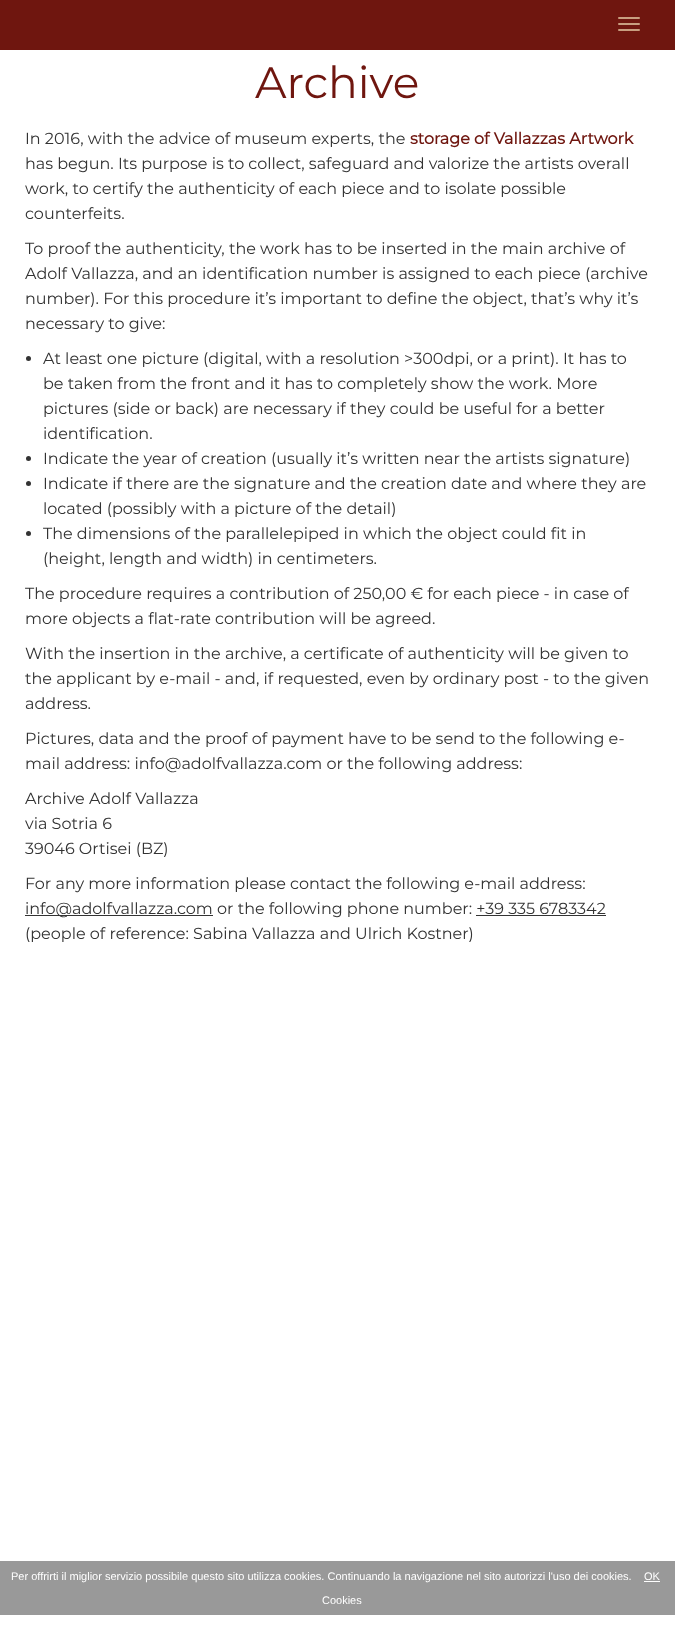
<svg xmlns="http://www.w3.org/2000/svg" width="675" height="1627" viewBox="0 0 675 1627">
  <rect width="100%" height="100%" fill="rgb(255,255,255)"/>
  <rect x="0" y="0" width="675" height="50" fill="rgb(111,22,15)"/>
  <rect x="618" y="17" width="22" height="2" rx="1" fill="rgb(200,158,128)"/>
  <rect x="618" y="23" width="22" height="2" rx="1" fill="rgb(200,158,128)"/>
  <rect x="618" y="29" width="22" height="2" rx="1" fill="rgb(200,158,128)"/>
  <text x="255" y="98" font-family="Montserrat" font-size="44" font-weight="100" fill="rgb(111,22,15)">Archive</text>
  <text x="25" y="144" font-family="Montserrat" font-size="16" font-weight="100" fill="rgb(51,51,51)">In 2016, with the advice of museum experts, the</text>
  <text x="410" y="144" font-family="Montserrat" font-size="16" font-weight="bold" fill="rgb(111,22,15)">storage of Vallazzas Artwork</text>
  <g font-family="Montserrat" font-size="16" font-weight="100" fill="rgb(51,51,51)">
    <text>
      <tspan x="25" y="169">has begun. Its purpose is to collect, safeguard and valorize the artists overall</tspan>
      <tspan x="25" y="194">work, to certify the authenticity of each piece and to isolate possible</tspan>
      <tspan x="25" y="219">counterfeits.</tspan>
    </text>
    <text>
      <tspan x="25" y="254">To proof the authenticity, the work has to be inserted in the main archive of</tspan>
      <tspan x="25" y="279">Adolf Vallazza, and an identification number is assigned to each piece (archive</tspan>
      <tspan x="25" y="304">number). For this procedure it’s important to define the object, that’s why it’s</tspan>
      <tspan x="25" y="329">necessary to give:</tspan>
    </text>
  </g>
  <circle cx="28.5" cy="358.5" r="2.5" fill="rgb(51,51,51)"/>
  <g font-family="Montserrat" font-size="16" font-weight="100" fill="rgb(51,51,51)">
    <text>
      <tspan x="43" y="364">At least one picture (digital, with a resolution &gt;300dpi, or a print). It has to</tspan>
      <tspan x="43" y="389">be taken from the front and it has to completely show the work. More</tspan>
      <tspan x="43" y="414">pictures (side or back) are necessary if they could be useful for a better</tspan>
      <tspan x="43" y="439">identification.</tspan>
    </text>
  </g>
  <circle cx="28.5" cy="458.5" r="2.5" fill="rgb(51,51,51)"/>
  <text x="43" y="464" font-family="Montserrat" font-size="16" font-weight="100" fill="rgb(51,51,51)">Indicate the year of creation (usually it’s written near the artists signature)</text>
  <circle cx="28.5" cy="483.5" r="2.5" fill="rgb(51,51,51)"/>
  <g font-family="Montserrat" font-size="16" font-weight="100" fill="rgb(51,51,51)">
    <text>
      <tspan x="43" y="489">Indicate if there are the signature and the creation date and where they are</tspan>
      <tspan x="43" y="514">located (possibly with a picture of the detail)</tspan>
    </text>
  </g>
  <circle cx="28.5" cy="533.5" r="2.5" fill="rgb(51,51,51)"/>
  <g font-family="Montserrat" font-size="16" font-weight="100" fill="rgb(51,51,51)">
    <text>
      <tspan x="43" y="539">The dimensions of the parallelepiped in which the object could fit in</tspan>
      <tspan x="43" y="564">(height, length and width) in centimeters.</tspan>
    </text>
    <text>
      <tspan x="25" y="599">The procedure requires a contribution of 250,00 € for each piece - in case of</tspan>
      <tspan x="25" y="624">more objects a flat-rate contribution will be agreed.</tspan>
    </text>
    <text>
      <tspan x="25" y="659">With the insertion in the archive, a certificate of authenticity will be given to</tspan>
      <tspan x="25" y="684">the applicant by e-mail - and, if requested, even by ordinary post - to the given</tspan>
      <tspan x="25" y="709">address.</tspan>
    </text>
    <text>
      <tspan x="25" y="744">Pictures, data and the proof of payment have to be send to the following e-</tspan>
      <tspan x="25" y="769">mail address: info@adolfvallazza.com or the following address:</tspan>
    </text>
    <text>
      <tspan x="25" y="804">Archive Adolf Vallazza</tspan>
      <tspan x="25" y="829">via Sotria 6</tspan>
      <tspan x="25" y="854">39046 Ortisei (BZ)</tspan>
    </text>
    <text x="25" y="889">For any more information please contact the following e-mail address:</text>
  </g>
  <rect x="25" y="915" width="188" height="1" fill="rgb(51,51,51)"/>
  <text x="25" y="914" font-family="Montserrat" font-size="16" font-weight="100" fill="rgb(51,51,51)">info@adolfvallazza.com or the following phone number: +39 335 6783342</text>
  <rect x="476" y="915" width="130" height="1" fill="rgb(51,51,51)"/>
  <text x="25" y="939" font-family="Montserrat" font-size="16" font-weight="100" fill="rgb(51,51,51)">(people of reference: Sabina Vallazza and Ulrich Kostner)</text>
  <rect x="0" y="1561" width="675" height="54" fill="rgb(153,153,153)"/>
  <g font-family="Liberation Sans" font-size="11" fill="rgb(255,255,255)">
    <text x="11" y="1580">Per offrirti il miglior servizio possibile questo sito utilizza cookies. Continuando la navigazione nel sito autorizzi l'uso dei cookies.</text>
    <text x="644" y="1580">OK</text>
  </g>
  <rect x="644" y="1581" width="16" height="1" fill="rgb(255,255,255)"/>
  <text x="322" y="1604" font-family="Liberation Sans" font-size="11" fill="rgb(255,255,255)">Cookies</text>
</svg>
